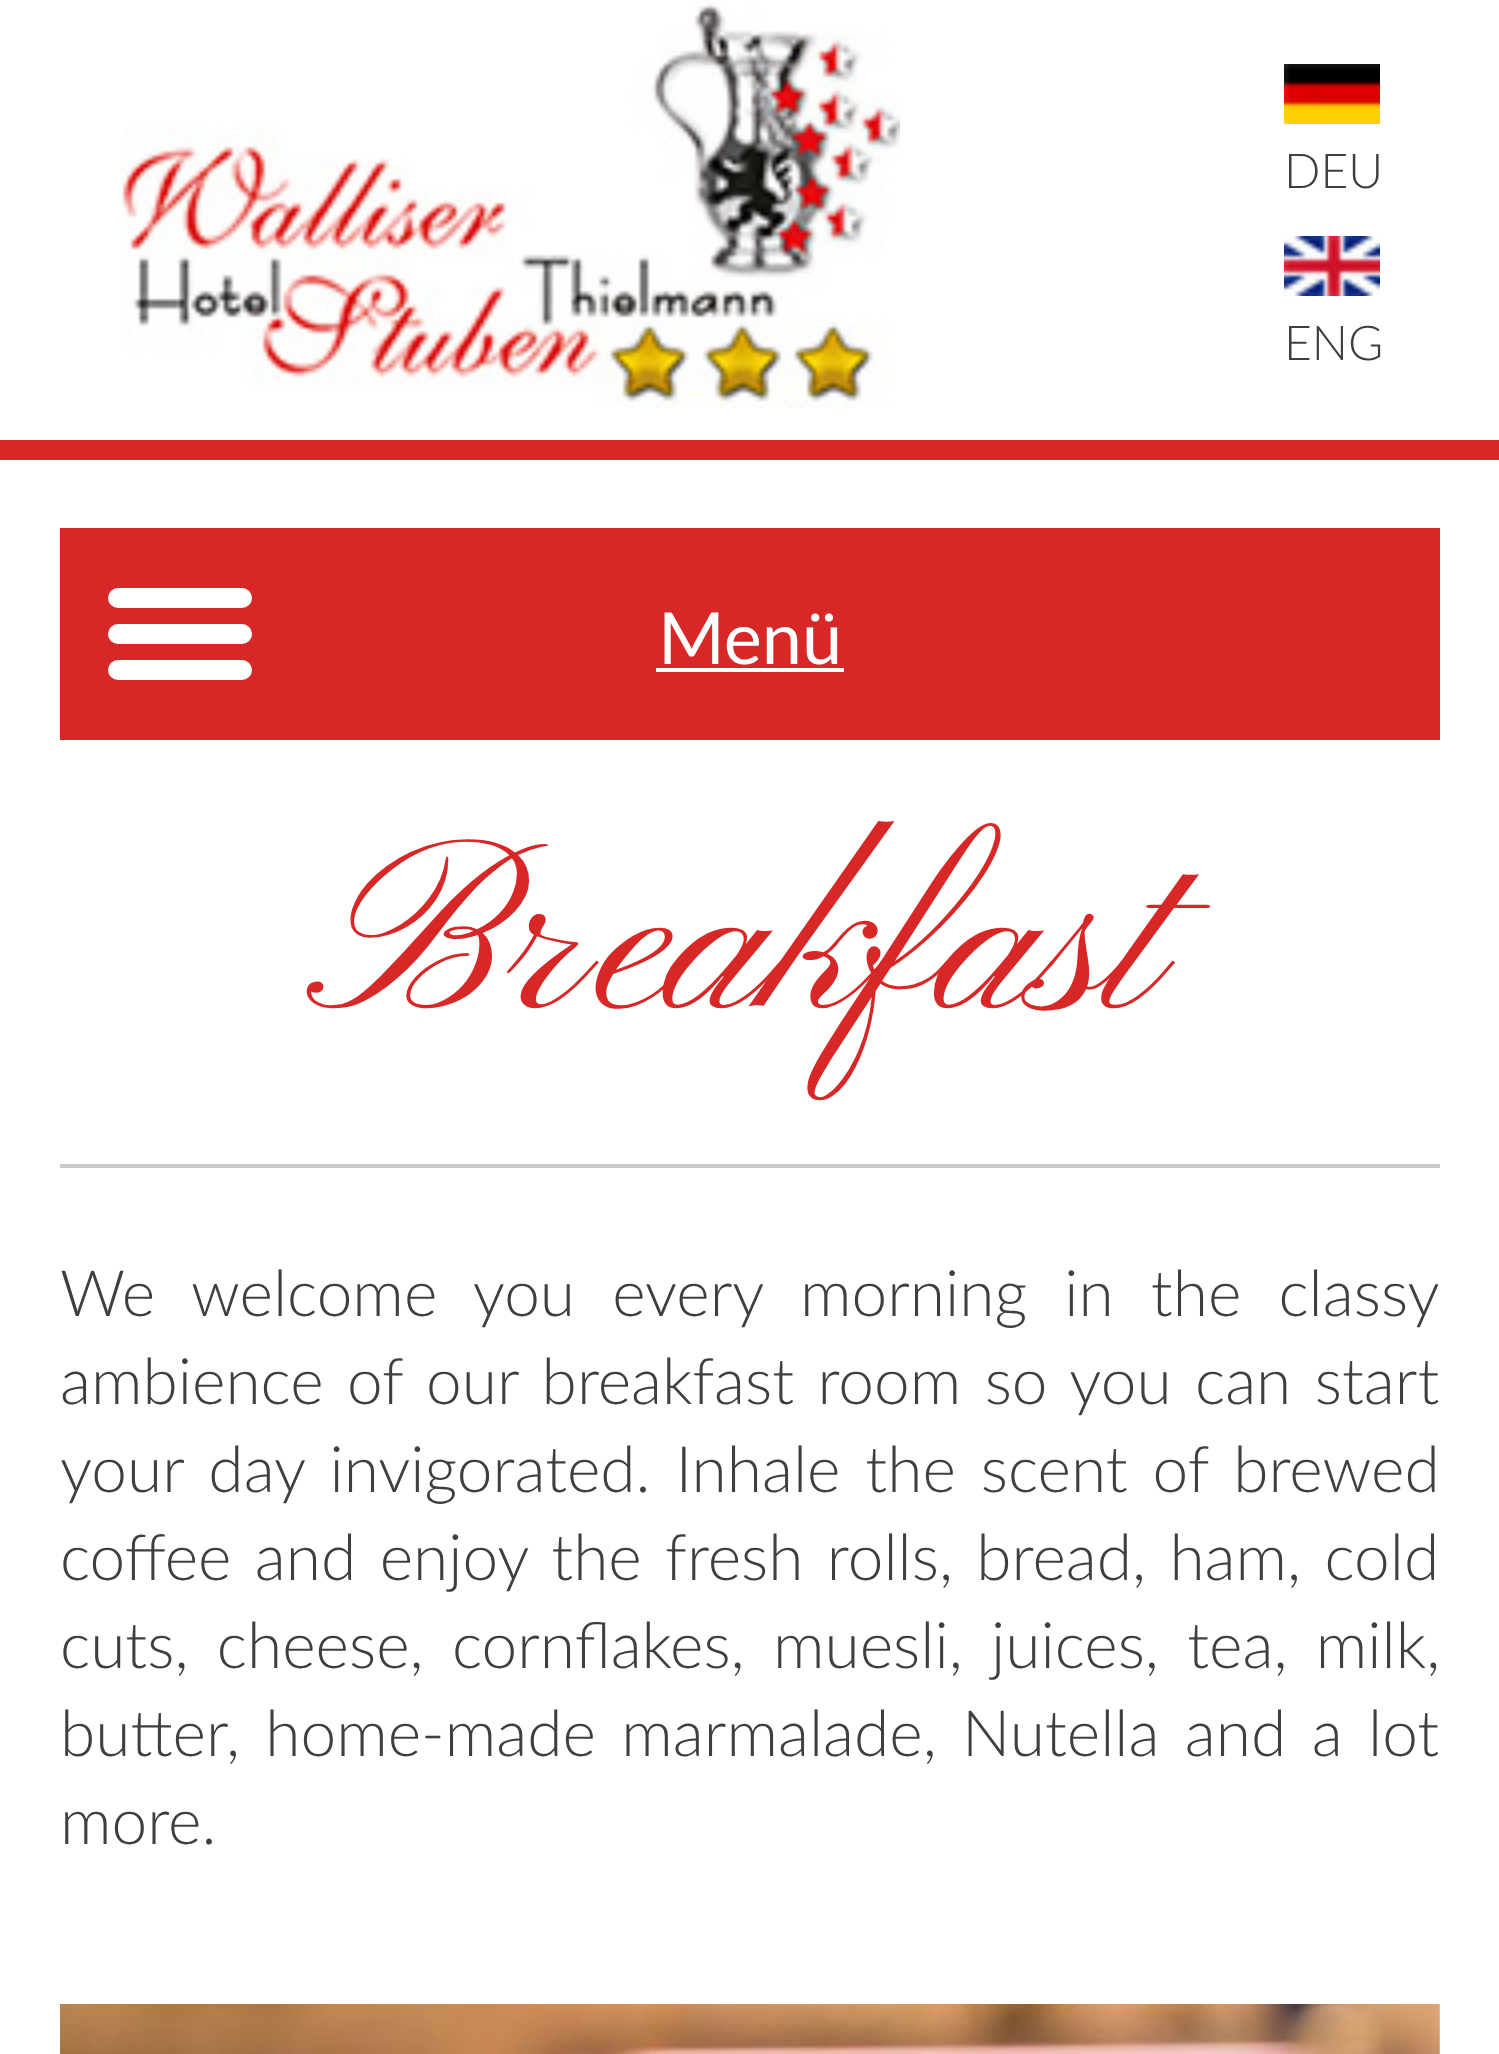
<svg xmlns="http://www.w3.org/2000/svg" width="1499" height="2054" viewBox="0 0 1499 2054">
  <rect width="100%" height="100%" fill="rgb(255,255,255)"/>
  <rect x="0" y="440" width="1499" height="20" fill="rgb(216,39,39)"/>
  <image x="120" y="3" width="780" height="405" href="pic1.png"/>
  <image x="1284" y="64" width="96" height="60" href="pic2.png"/>
  <text x="1284" y="188" font-family="Lato" font-size="48" font-weight="300" fill="rgb(63,63,63)">DEU</text>
  <image x="1284" y="236" width="96" height="60" href="pic3.png"/>
  <text x="1284" y="360" font-family="Lato" font-size="48" font-weight="300" fill="rgb(63,63,63)">ENG</text>
  <rect x="60" y="528" width="1380" height="212" fill="rgb(216,39,39)"/>
  <rect x="108" y="588" width="144" height="20" rx="10" fill="rgb(255,255,255)"/>
  <rect x="108" y="624" width="144" height="20" rx="10" fill="rgb(255,255,255)"/>
  <text x="658" y="664" font-family="Lato" font-size="72" fill="rgb(255,255,255)">Menü</text>
  <rect x="656" y="668" width="188" height="4" fill="rgb(255,255,255)"/>
  <rect x="108" y="660" width="144" height="20" rx="10" fill="rgb(255,255,255)"/>
  <text x="328" y="1008" font-family="Pinyon Script" font-size="240" fill="rgb(216,39,39)">Breakfast</text>
  <rect x="60" y="1164" width="1380" height="4" fill="rgb(202,202,202)"/>
  <g font-family="Lato" font-size="64" font-weight="300" fill="rgb(63,63,63)">
    <text>
      <tspan x="60" y="1316" word-spacing="19.75">We welcome you every morning in the classy</tspan>
      <tspan x="60" y="1404" word-spacing="6">ambience of our breakfast room so you can start</tspan>
      <tspan x="60" y="1492" word-spacing="7.5">your day invigorated. Inhale the scent of brewed</tspan>
      <tspan x="60" y="1580" word-spacing="6">coffee and enjoy the fresh rolls, bread, ham, cold</tspan>
      <tspan x="60" y="1668" word-spacing="11">cuts, cheese, cornflakes, muesli, juices, tea, milk,</tspan>
      <tspan x="60" y="1756" word-spacing="8">butter, home-made marmalade, Nutella and a lot</tspan>
      <tspan x="60" y="1844">more.</tspan>
    </text>
  </g>
  <image x="60" y="2004" width="1380" height="50" href="pic4.png"/>
</svg>
